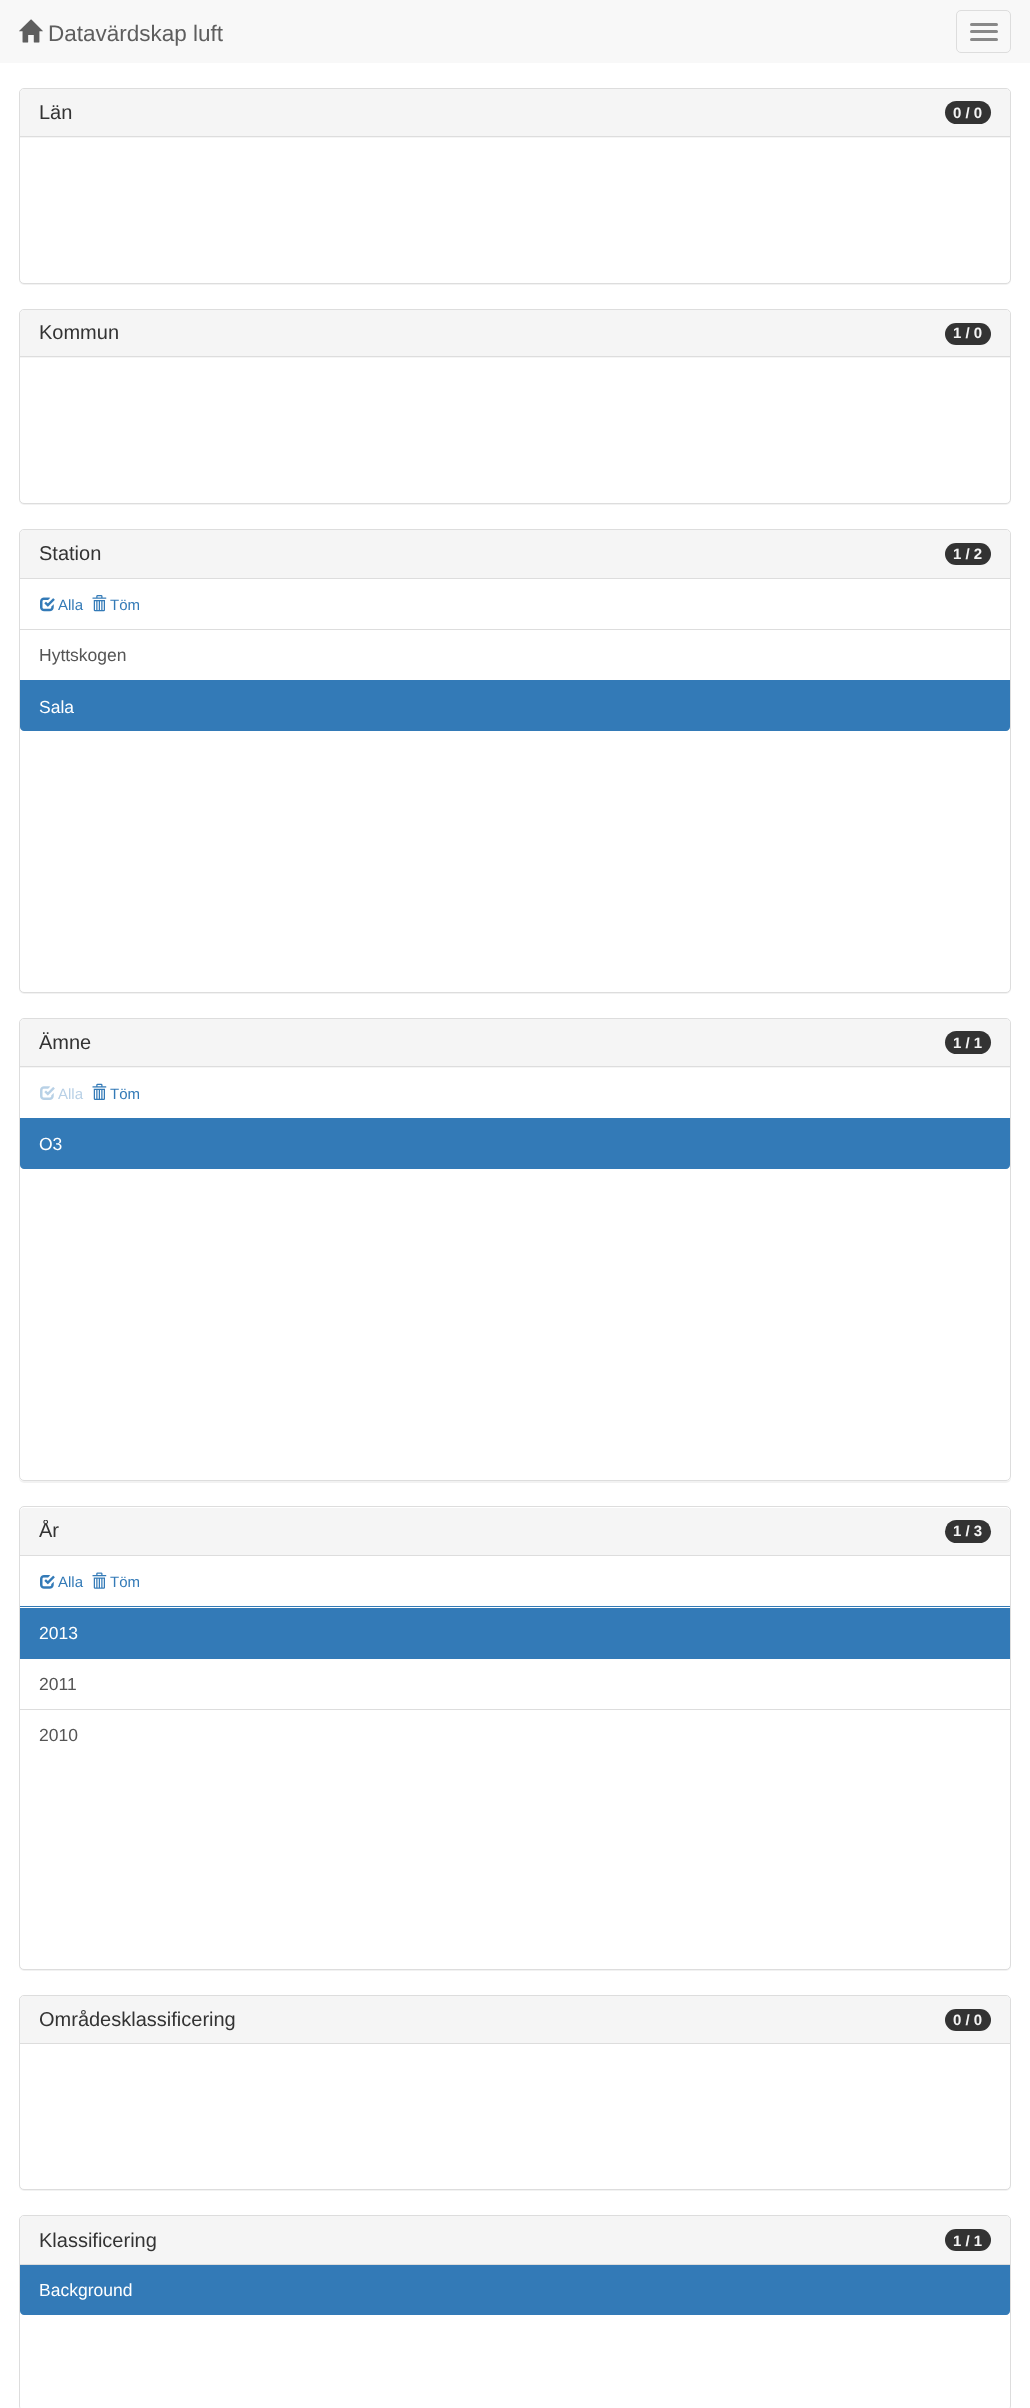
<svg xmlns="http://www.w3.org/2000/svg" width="1030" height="2408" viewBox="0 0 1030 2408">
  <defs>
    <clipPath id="clip1"><path d="M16 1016H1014V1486H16ZM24 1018H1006C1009 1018 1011 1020 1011 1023V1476C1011 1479 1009 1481 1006 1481H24C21 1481 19 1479 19 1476V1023C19 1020 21 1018 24 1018Z" clip-rule="evenodd"/></clipPath>
    <clipPath id="clip2"><rect x="39" y="1520" width="906" height="23"/></clipPath>
  </defs>
  <rect width="100%" height="100%" fill="rgb(255,255,255)"/>
  <rect x="0" y="0" width="1030" height="63" fill="rgb(248,248,248)"/>
  <image x="19" y="19" width="24" height="24" href="pic1.png"/>
  <text x="48" y="41" font-family="Liberation Sans" font-size="22.5" fill="rgb(94,94,94)">Datavärdskap luft</text>
  <rect x="956.5" y="10.5" width="54" height="42" rx="4.5" fill="none" stroke="rgb(221,221,221)"/>
  <rect x="970" y="23" width="28" height="3" rx="1.5" fill="rgb(136,136,136)"/>
  <rect x="970" y="30" width="28" height="3" rx="1.5" fill="rgb(136,136,136)"/>
  <rect x="970" y="38" width="28" height="3" rx="1.5" fill="rgb(136,136,136)"/>
  <rect x="19" y="89" width="992" height="196" rx="5" fill="rgba(0,0,0,0.05)" filter="blur(0.5px)"/>
  <rect x="19.5" y="88.5" width="991" height="195" rx="4.5" fill="rgb(255,255,255)" stroke="rgb(221,221,221)"/>
  <path d="M24 89H1006C1008 89 1010 91 1010 93V138H20V93C20 91 22 89 24 89Z" fill="rgb(245,245,245)"/>
  <rect x="20" y="136" width="990" height="1" fill="rgb(221,221,221)"/>
  <text x="39" y="119" font-family="Liberation Sans" font-size="20" fill="rgb(51,51,51)">Län</text>
  <rect x="945" y="101" width="46" height="23" rx="11.5" fill="rgb(51,51,51)"/>
  <text x="953" y="118" font-family="Liberation Sans" font-size="15" font-weight="bold" fill="rgb(245,245,245)">0 / 0</text>
  <rect x="19" y="310" width="992" height="195" rx="5" fill="rgba(0,0,0,0.05)" filter="blur(0.5px)"/>
  <rect x="19.5" y="309.5" width="991" height="194" rx="4.5" fill="rgb(255,255,255)" stroke="rgb(221,221,221)"/>
  <path d="M24 310H1006C1008 310 1010 312 1010 314V358H20V314C20 312 22 310 24 310Z" fill="rgb(245,245,245)"/>
  <rect x="20" y="356" width="990" height="1" fill="rgb(221,221,221)"/>
  <text x="39" y="339" font-family="Liberation Sans" font-size="20" fill="rgb(51,51,51)">Kommun</text>
  <rect x="945" y="323" width="46" height="22" rx="11" fill="rgb(51,51,51)"/>
  <text x="953" y="338" font-family="Liberation Sans" font-size="15" font-weight="bold" fill="rgb(245,245,245)">1 / 0</text>
  <rect x="19" y="530" width="992" height="464" rx="5" fill="rgba(0,0,0,0.05)" filter="blur(0.5px)"/>
  <rect x="19.5" y="529.5" width="991" height="463" rx="4.5" fill="rgb(255,255,255)" stroke="rgb(221,221,221)"/>
  <path d="M24 530H1006C1008 530 1010 532 1010 534V579H20V534C20 532 22 530 24 530Z" fill="rgb(245,245,245)"/>
  <rect x="20" y="578" width="990" height="1" fill="rgb(221,221,221)"/>
  <text x="39" y="560" font-family="Liberation Sans" font-size="20" fill="rgb(51,51,51)">Station</text>
  <rect x="945" y="543" width="46" height="22" rx="11" fill="rgb(51,51,51)"/>
  <text x="953" y="559" font-family="Liberation Sans" font-size="15" font-weight="bold" fill="rgb(245,245,245)">1 / 2</text>
  <image x="40" y="597" width="15" height="15" href="pic2.png"/>
  <text x="58" y="610" font-family="Liberation Sans" font-size="15" fill="rgb(51,122,183)">Alla</text>
  <image x="92" y="595" width="15" height="17" href="pic3.png"/>
  <text x="110" y="610" font-family="Liberation Sans" font-size="15" fill="rgb(51,122,183)">Töm</text>
  <rect x="20" y="629" width="990" height="1" fill="rgb(221,221,221)"/>
  <text x="39" y="661" font-family="Liberation Sans" font-size="17.5" fill="rgb(85,85,85)">Hyttskogen</text>
  <path d="M20 680H1010V727C1010 729 1008 731 1006 731H24C22 731 20 729 20 727Z" fill="rgb(51,122,183)"/>
  <text x="39" y="713" font-family="Liberation Sans" font-size="17.5" fill="rgb(255,255,255)">Sala</text>
  <g clip-path="url(#clip1)">
    <rect x="19" y="1019" width="992" height="464" rx="5" fill="rgba(0,0,0,0.05)" filter="blur(0.5px)"/>
  </g>
  <rect x="19.5" y="1018.5" width="991" height="462" rx="4.5" fill="none" stroke="rgb(221,221,221)"/>
  <path d="M24 1019H1006C1008 1019 1010 1021 1010 1023V1068H20V1023C20 1021 22 1019 24 1019Z" fill="rgb(245,245,245)"/>
  <rect x="20" y="1066" width="990" height="1" fill="rgb(221,221,221)"/>
  <text x="39" y="1049" font-family="Liberation Sans" font-size="20" fill="rgb(51,51,51)">Ämne</text>
  <rect x="945" y="1031" width="46" height="23" rx="11.5" fill="rgb(51,51,51)"/>
  <text x="953" y="1048" font-family="Liberation Sans" font-size="15" font-weight="bold" fill="rgb(245,245,245)">1 / 1</text>
  <image x="40" y="1086" width="15" height="14" href="pic4.png"/>
  <text x="58" y="1099" font-family="Liberation Sans" font-size="15" fill="rgb(184,208,230)">Alla</text>
  <image x="92" y="1083" width="15" height="17" href="pic5.png"/>
  <text x="110" y="1099" font-family="Liberation Sans" font-size="15" fill="rgb(51,122,183)">Töm</text>
  <path d="M20 1118H1010V1165C1010 1167 1008 1169 1006 1169H24C22 1169 20 1167 20 1165Z" fill="rgb(51,122,183)"/>
  <text x="39" y="1150" font-family="Liberation Sans" font-size="17.5" fill="rgb(255,255,255)">O3</text>
  <rect x="19" y="1508" width="992" height="463" rx="5" fill="rgba(0,0,0,0.05)" filter="blur(0.5px)"/>
  <rect x="19.5" y="1506.5" width="991" height="463" rx="4.5" fill="rgb(255,255,255)" stroke="rgb(221,221,221)"/>
  <path d="M24 1508H1006C1008 1508 1010 1510 1010 1512V1556H20V1512C20 1510 22 1508 24 1508Z" fill="rgb(245,245,245)"/>
  <rect x="20" y="1555" width="990" height="1" fill="rgb(221,221,221)"/>
  <g clip-path="url(#clip2)">
    <text x="39" y="1537" font-family="Liberation Sans" font-size="20" fill="rgb(51,51,51)">År</text>
  </g>
  <rect x="945" y="1520" width="46" height="23" rx="11.5" fill="rgb(51,51,51)"/>
  <text x="953" y="1536" font-family="Liberation Sans" font-size="15" font-weight="bold" fill="rgb(245,245,245)">1 / 3</text>
  <image x="40" y="1575" width="15" height="14" href="pic6.png"/>
  <text x="58" y="1587" font-family="Liberation Sans" font-size="15" fill="rgb(51,122,183)">Alla</text>
  <image x="92" y="1572" width="15" height="17" href="pic7.png"/>
  <text x="110" y="1587" font-family="Liberation Sans" font-size="15" fill="rgb(51,122,183)">Töm</text>
  <rect x="20" y="1608" width="990" height="51" fill="rgb(51,122,183)"/>
  <rect x="20" y="1606" width="990" height="1" fill="rgb(51,122,183)"/>
  <text x="39" y="1639" font-family="Liberation Sans" font-size="17.5" fill="rgb(255,255,255)">2013</text>
  <text x="39" y="1690" font-family="Liberation Sans" font-size="17.5" fill="rgb(85,85,85)">2011</text>
  <rect x="20" y="1709" width="990" height="1" fill="rgb(221,221,221)"/>
  <text x="39" y="1741" font-family="Liberation Sans" font-size="17.5" fill="rgb(85,85,85)">2010</text>
  <rect x="19" y="1996" width="992" height="195" rx="5" fill="rgba(0,0,0,0.05)" filter="blur(0.5px)"/>
  <rect x="19.5" y="1995.5" width="991" height="194" rx="4.5" fill="rgb(255,255,255)" stroke="rgb(221,221,221)"/>
  <path d="M24 1996H1006C1008 1996 1010 1998 1010 2000V2044H20V2000C20 1998 22 1996 24 1996Z" fill="rgb(245,245,245)"/>
  <rect x="20" y="2043" width="990" height="1" fill="rgb(221,221,221)"/>
  <text x="39" y="2026" font-family="Liberation Sans" font-size="20" fill="rgb(51,51,51)">Områdesklassificering</text>
  <rect x="945" y="2009" width="46" height="22" rx="11" fill="rgb(51,51,51)"/>
  <text x="953" y="2025" font-family="Liberation Sans" font-size="15" font-weight="bold" fill="rgb(245,245,245)">0 / 0</text>
  <rect x="19.5" y="2215.5" width="991" height="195" rx="4.5" fill="none" stroke="rgb(221,221,221)"/>
  <path d="M24 2216H1006C1008 2216 1010 2218 1010 2220V2265H20V2220C20 2218 22 2216 24 2216Z" fill="rgb(245,245,245)"/>
  <rect x="20" y="2264" width="990" height="1" fill="rgb(221,221,221)"/>
  <text x="39" y="2247" font-family="Liberation Sans" font-size="20" fill="rgb(51,51,51)">Klassificering</text>
  <rect x="945" y="2229" width="46" height="22" rx="11" fill="rgb(51,51,51)"/>
  <text x="953" y="2246" font-family="Liberation Sans" font-size="15" font-weight="bold" fill="rgb(245,245,245)">1 / 1</text>
  <path d="M20 2265H1010V2311C1010 2313 1008 2315 1006 2315H24C22 2315 20 2313 20 2311Z" fill="rgb(51,122,183)"/>
  <text x="39" y="2296" font-family="Liberation Sans" font-size="17.5" fill="rgb(255,255,255)">Background</text>
</svg>
